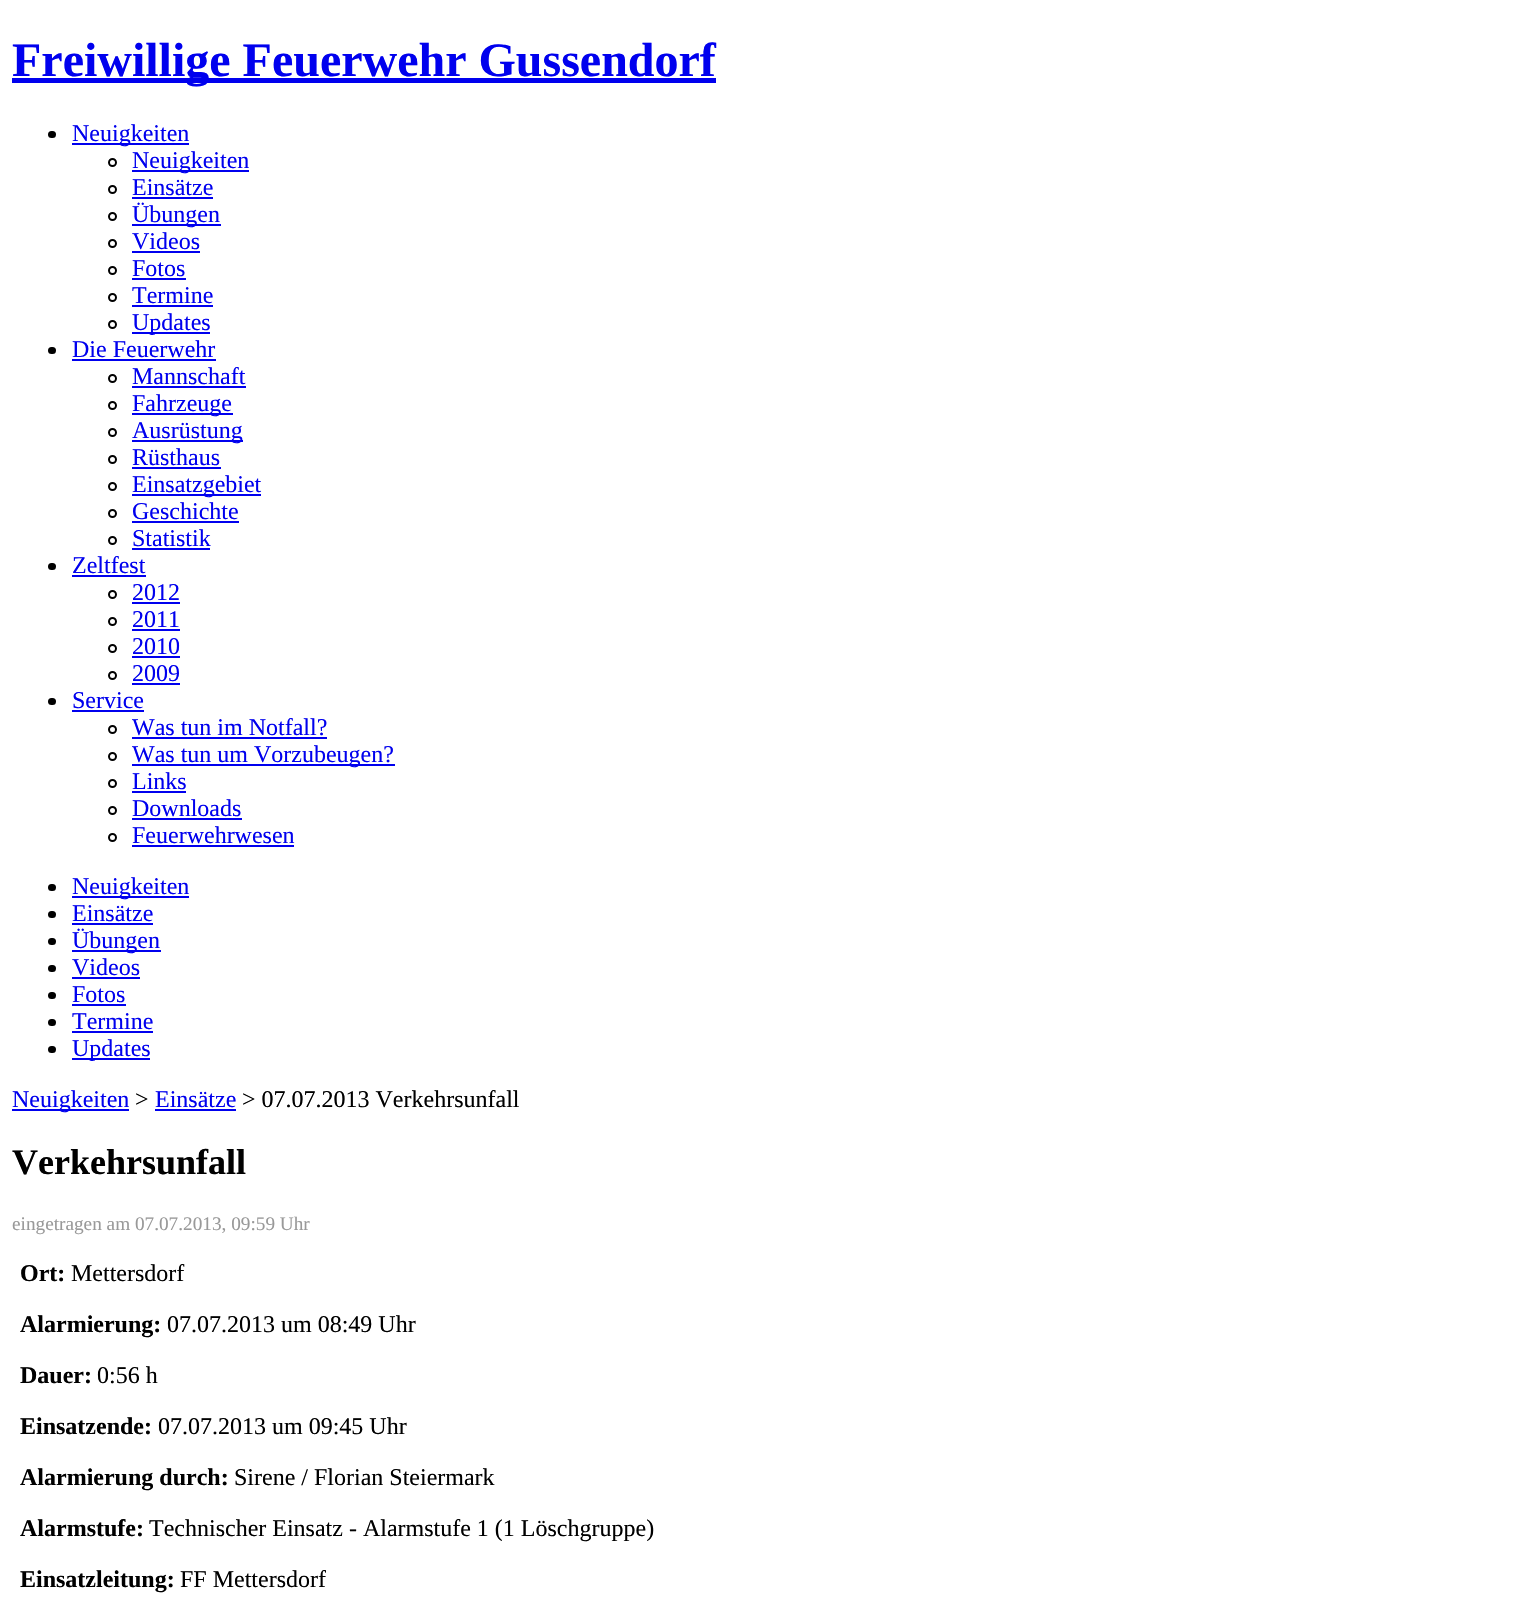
void draw(SkCanvas* canvas) {
	SkPaint paint;
	paint.setAntiAlias(true);
	canvas->clear(0xffffffff);
	paint.setColor(0xff0000ee);
	canvas->drawRect(SkRect::MakeXYWH(12, 78, 704, 5), paint);
	SkFont f1(fontMgr->matchFamilyStyle("Liberation Serif", SkFontStyle::Bold()), 48);
	f1.setSubpixel(true);
	canvas->drawString("Freiwillige Feuerwehr Gussendorf", 12, 76, f1, paint);
	paint.setColor(0xff000000);
	canvas->drawRoundRect(SkRect::MakeXYWH(48, 131, 8, 7), 3.5, 3.5, paint);
	paint.setColor(0xff0000ee);
	canvas->drawRect(SkRect::MakeXYWH(72, 143, 117, 2), paint);
	SkFont f2(fontMgr->matchFamilyStyle("Liberation Serif", SkFontStyle::Normal()), 24);
	f2.setSubpixel(true);
	canvas->drawString("Neuigkeiten", 72, 141, f2, paint);
	paint.setStroke(true);
	paint.setStrokeWidth(2);
	paint.setColor(0xff000000);
	canvas->drawCircle(112.5, 162.5, 3.5, paint);
	paint.setStroke(false);
	paint.setColor(0xff0000ee);
	canvas->drawRect(SkRect::MakeXYWH(132, 170, 117, 2), paint);
	canvas->drawString("Neuigkeiten", 132, 168, f2, paint);
	paint.setStroke(true);
	paint.setColor(0xff000000);
	canvas->drawCircle(112.5, 189.5, 3.5, paint);
	paint.setStroke(false);
	paint.setColor(0xff0000ee);
	canvas->drawString("Einsätze", 132, 195, f2, paint);
	canvas->drawRect(SkRect::MakeXYWH(132, 197, 81, 2), paint);
	paint.setStroke(true);
	paint.setColor(0xff000000);
	canvas->drawCircle(112.5, 216.5, 3.5, paint);
	paint.setStroke(false);
	paint.setColor(0xff0000ee);
	canvas->drawRect(SkRect::MakeXYWH(132, 224, 89, 2), paint);
	canvas->drawString("Übungen", 132, 222, f2, paint);
	paint.setStroke(true);
	paint.setColor(0xff000000);
	canvas->drawCircle(112.5, 243.5, 3.5, paint);
	paint.setStroke(false);
	paint.setColor(0xff0000ee);
	canvas->drawString("Videos", 132, 249, f2, paint);
	canvas->drawRect(SkRect::MakeXYWH(132, 251, 68, 2), paint);
	paint.setStroke(true);
	paint.setColor(0xff000000);
	canvas->drawCircle(112.5, 270.5, 3.5, paint);
	paint.setStroke(false);
	paint.setColor(0xff0000ee);
	canvas->drawString("Fotos", 132, 276, f2, paint);
	canvas->drawRect(SkRect::MakeXYWH(132, 278, 54, 2), paint);
	paint.setStroke(true);
	paint.setColor(0xff000000);
	canvas->drawCircle(112.5, 297.5, 3.5, paint);
	paint.setStroke(false);
	paint.setColor(0xff0000ee);
	canvas->drawString("Termine", 132, 303, f2, paint);
	canvas->drawRect(SkRect::MakeXYWH(132, 305, 81, 2), paint);
	paint.setStroke(true);
	paint.setColor(0xff000000);
	canvas->drawCircle(112.5, 324.5, 3.5, paint);
	paint.setStroke(false);
	paint.setColor(0xff0000ee);
	canvas->drawRect(SkRect::MakeXYWH(132, 332, 78, 2), paint);
	canvas->drawString("Updates", 132, 330, f2, paint);
	paint.setColor(0xff000000);
	canvas->drawRoundRect(SkRect::MakeXYWH(48, 347, 8, 7), 3.5, 3.5, paint);
	paint.setColor(0xff0000ee);
	canvas->drawString("Die Feuerwehr", 72, 357, f2, paint);
	canvas->drawRect(SkRect::MakeXYWH(72, 359, 144, 2), paint);
	paint.setStroke(true);
	paint.setColor(0xff000000);
	canvas->drawCircle(112.5, 378.5, 3.5, paint);
	paint.setStroke(false);
	paint.setColor(0xff0000ee);
	canvas->drawString("Mannschaft", 132, 384, f2, paint);
	canvas->drawRect(SkRect::MakeXYWH(132, 386, 114, 2), paint);
	paint.setStroke(true);
	paint.setColor(0xff000000);
	canvas->drawCircle(112.5, 405.5, 3.5, paint);
	paint.setStroke(false);
	paint.setColor(0xff0000ee);
	canvas->drawRect(SkRect::MakeXYWH(132, 413, 101, 2), paint);
	canvas->drawString("Fahrzeuge", 132, 411, f2, paint);
	paint.setStroke(true);
	paint.setColor(0xff000000);
	canvas->drawCircle(112.5, 432.5, 3.5, paint);
	paint.setStroke(false);
	paint.setColor(0xff0000ee);
	canvas->drawRect(SkRect::MakeXYWH(132, 440, 111, 2), paint);
	canvas->drawString("Ausrüstung", 132, 438, f2, paint);
	paint.setStroke(true);
	paint.setColor(0xff000000);
	canvas->drawCircle(112.5, 459.5, 3.5, paint);
	paint.setStroke(false);
	paint.setColor(0xff0000ee);
	canvas->drawString("Rüsthaus", 132, 465, f2, paint);
	canvas->drawRect(SkRect::MakeXYWH(132, 467, 89, 2), paint);
	paint.setStroke(true);
	paint.setColor(0xff000000);
	canvas->drawCircle(112.5, 486.5, 3.5, paint);
	paint.setStroke(false);
	paint.setColor(0xff0000ee);
	canvas->drawRect(SkRect::MakeXYWH(132, 494, 129, 2), paint);
	canvas->drawString("Einsatzgebiet", 132, 492, f2, paint);
	paint.setStroke(true);
	paint.setColor(0xff000000);
	canvas->drawCircle(112.5, 513.5, 3.5, paint);
	paint.setStroke(false);
	paint.setColor(0xff0000ee);
	canvas->drawString("Geschichte", 132, 519, f2, paint);
	canvas->drawRect(SkRect::MakeXYWH(132, 521, 107, 2), paint);
	paint.setStroke(true);
	paint.setColor(0xff000000);
	canvas->drawCircle(112.5, 540.5, 3.5, paint);
	paint.setStroke(false);
	paint.setColor(0xff0000ee);
	canvas->drawString("Statistik", 132, 546, f2, paint);
	canvas->drawRect(SkRect::MakeXYWH(132, 548, 78, 2), paint);
	paint.setColor(0xff000000);
	canvas->drawRoundRect(SkRect::MakeXYWH(48, 563, 8, 7), 3.5, 3.5, paint);
	paint.setColor(0xff0000ee);
	canvas->drawString("Zeltfest", 72, 573, f2, paint);
	canvas->drawRect(SkRect::MakeXYWH(72, 575, 74, 2), paint);
	paint.setStroke(true);
	paint.setColor(0xff000000);
	canvas->drawCircle(112.5, 594.5, 3.5, paint);
	paint.setStroke(false);
	paint.setColor(0xff0000ee);
	canvas->drawString("2012", 132, 600, f2, paint);
	canvas->drawRect(SkRect::MakeXYWH(132, 602, 48, 2), paint);
	paint.setStroke(true);
	paint.setColor(0xff000000);
	canvas->drawCircle(112.5, 621.5, 3.5, paint);
	paint.setStroke(false);
	paint.setColor(0xff0000ee);
	canvas->drawString("2011", 132, 627, f2, paint);
	canvas->drawRect(SkRect::MakeXYWH(132, 629, 48, 2), paint);
	paint.setStroke(true);
	paint.setColor(0xff000000);
	canvas->drawCircle(112.5, 648.5, 3.5, paint);
	paint.setStroke(false);
	paint.setColor(0xff0000ee);
	canvas->drawString("2010", 132, 654, f2, paint);
	canvas->drawRect(SkRect::MakeXYWH(132, 656, 48, 2), paint);
	paint.setStroke(true);
	paint.setColor(0xff000000);
	canvas->drawCircle(112.5, 675.5, 3.5, paint);
	paint.setStroke(false);
	paint.setColor(0xff0000ee);
	canvas->drawString("2009", 132, 681, f2, paint);
	canvas->drawRect(SkRect::MakeXYWH(132, 683, 48, 2), paint);
	paint.setColor(0xff000000);
	canvas->drawRoundRect(SkRect::MakeXYWH(48, 698, 8, 7), 3.5, 3.5, paint);
	paint.setColor(0xff0000ee);
	canvas->drawString("Service", 72, 708, f2, paint);
	canvas->drawRect(SkRect::MakeXYWH(72, 710, 72, 2), paint);
	paint.setStroke(true);
	paint.setColor(0xff000000);
	canvas->drawCircle(112.5, 729.5, 3.5, paint);
	paint.setStroke(false);
	paint.setColor(0xff0000ee);
	canvas->drawString("Was tun im Notfall?", 132, 735, f2, paint);
	canvas->drawRect(SkRect::MakeXYWH(132, 737, 195, 2), paint);
	paint.setStroke(true);
	paint.setColor(0xff000000);
	canvas->drawCircle(112.5, 756.5, 3.5, paint);
	paint.setStroke(false);
	paint.setColor(0xff0000ee);
	canvas->drawRect(SkRect::MakeXYWH(132, 764, 263, 2), paint);
	canvas->drawString("Was tun um Vorzubeugen?", 132, 762, f2, paint);
	paint.setStroke(true);
	paint.setColor(0xff000000);
	canvas->drawCircle(112.5, 783.5, 3.5, paint);
	paint.setStroke(false);
	paint.setColor(0xff0000ee);
	canvas->drawString("Links", 132, 789, f2, paint);
	canvas->drawRect(SkRect::MakeXYWH(132, 791, 54, 2), paint);
	paint.setStroke(true);
	paint.setColor(0xff000000);
	canvas->drawCircle(112.5, 810.5, 3.5, paint);
	paint.setStroke(false);
	paint.setColor(0xff0000ee);
	canvas->drawString("Downloads", 132, 816, f2, paint);
	canvas->drawRect(SkRect::MakeXYWH(132, 818, 110, 2), paint);
	paint.setStroke(true);
	paint.setColor(0xff000000);
	canvas->drawCircle(112.5, 837.5, 3.5, paint);
	paint.setStroke(false);
	paint.setColor(0xff0000ee);
	canvas->drawString("Feuerwehrwesen", 132, 843, f2, paint);
	canvas->drawRect(SkRect::MakeXYWH(132, 845, 162, 2), paint);
	paint.setColor(0xff000000);
	canvas->drawRoundRect(SkRect::MakeXYWH(48, 884, 8, 7), 3.5, 3.5, paint);
	paint.setColor(0xff0000ee);
	canvas->drawRect(SkRect::MakeXYWH(72, 896, 117, 2), paint);
	canvas->drawString("Neuigkeiten", 72, 894, f2, paint);
	paint.setColor(0xff000000);
	canvas->drawRoundRect(SkRect::MakeXYWH(48, 911, 8, 7), 3.5, 3.5, paint);
	paint.setColor(0xff0000ee);
	canvas->drawString("Einsätze", 72, 921, f2, paint);
	canvas->drawRect(SkRect::MakeXYWH(72, 923, 81, 2), paint);
	paint.setColor(0xff000000);
	canvas->drawRoundRect(SkRect::MakeXYWH(48, 938, 8, 7), 3.5, 3.5, paint);
	paint.setColor(0xff0000ee);
	canvas->drawRect(SkRect::MakeXYWH(72, 950, 89, 2), paint);
	canvas->drawString("Übungen", 72, 948, f2, paint);
	paint.setColor(0xff000000);
	canvas->drawRoundRect(SkRect::MakeXYWH(48, 965, 8, 7), 3.5, 3.5, paint);
	paint.setColor(0xff0000ee);
	canvas->drawString("Videos", 72, 975, f2, paint);
	canvas->drawRect(SkRect::MakeXYWH(72, 977, 68, 2), paint);
	paint.setColor(0xff000000);
	canvas->drawRoundRect(SkRect::MakeXYWH(48, 992, 8, 7), 3.5, 3.5, paint);
	paint.setColor(0xff0000ee);
	canvas->drawString("Fotos", 72, 1002, f2, paint);
	canvas->drawRect(SkRect::MakeXYWH(72, 1004, 54, 2), paint);
	paint.setColor(0xff000000);
	canvas->drawRoundRect(SkRect::MakeXYWH(48, 1019, 8, 7), 3.5, 3.5, paint);
	paint.setColor(0xff0000ee);
	canvas->drawString("Termine", 72, 1029, f2, paint);
	canvas->drawRect(SkRect::MakeXYWH(72, 1031, 81, 2), paint);
	paint.setColor(0xff000000);
	canvas->drawRoundRect(SkRect::MakeXYWH(48, 1046, 8, 7), 3.5, 3.5, paint);
	paint.setColor(0xff0000ee);
	canvas->drawRect(SkRect::MakeXYWH(72, 1058, 78, 2), paint);
	canvas->drawString("Updates", 72, 1056, f2, paint);
	canvas->drawRect(SkRect::MakeXYWH(12, 1109, 117, 2), paint);
	canvas->drawString("Neuigkeiten", 12, 1107, f2, paint);
	paint.setColor(0xff000000);
	canvas->drawString(">", 135, 1107, f2, paint);
	paint.setColor(0xff0000ee);
	canvas->drawString("Einsätze", 155, 1107, f2, paint);
	canvas->drawRect(SkRect::MakeXYWH(155, 1109, 81, 2), paint);
	paint.setColor(0xff000000);
	canvas->drawString("> 07.07.2013 Verkehrsunfall", 242, 1107, f2, paint);
	SkFont f3(fontMgr->matchFamilyStyle("Liberation Serif", SkFontStyle::Bold()), 36);
	f3.setSubpixel(true);
	canvas->drawString("Verkehrsunfall", 12, 1174, f3, paint);
	SkFont f4(fontMgr->matchFamilyStyle("Liberation Serif", SkFontStyle::Normal()), 19.25);
	f4.setSubpixel(true);
	paint.setColor(0xff999999);
	canvas->drawString("eingetragen am 07.07.2013, 09:59 Uhr", 12, 1230, f4, paint);
	SkFont f5(fontMgr->matchFamilyStyle("Liberation Serif", SkFontStyle::Bold()), 24);
	f5.setSubpixel(true);
	paint.setColor(0xff000000);
	canvas->drawString("Ort:", 20, 1281, f5, paint);
	canvas->drawString("Mettersdorf", 71, 1281, f2, paint);
	canvas->drawString("Alarmierung:", 20, 1332, f5, paint);
	canvas->drawString("07.07.2013 um 08:49 Uhr", 167, 1332, f2, paint);
	canvas->drawString("Dauer:", 20, 1383, f5, paint);
	canvas->drawString("0:56 h", 97, 1383, f2, paint);
	canvas->drawString("Einsatzende:", 20, 1434, f5, paint);
	canvas->drawString("07.07.2013 um 09:45 Uhr", 158, 1434, f2, paint);
	canvas->drawString("Alarmierung durch:", 20, 1485, f5, paint);
	canvas->drawString("Sirene / Florian Steiermark", 234, 1485, f2, paint);
	canvas->drawString("Alarmstufe:", 20, 1536, f5, paint);
	canvas->drawString("Technischer Einsatz - Alarmstufe 1 (1 Löschgruppe)", 149, 1536, f2, paint);
	canvas->drawString("Einsatzleitung:", 20, 1587, f5, paint);
	canvas->drawString("FF Mettersdorf", 180, 1587, f2, paint);
}
